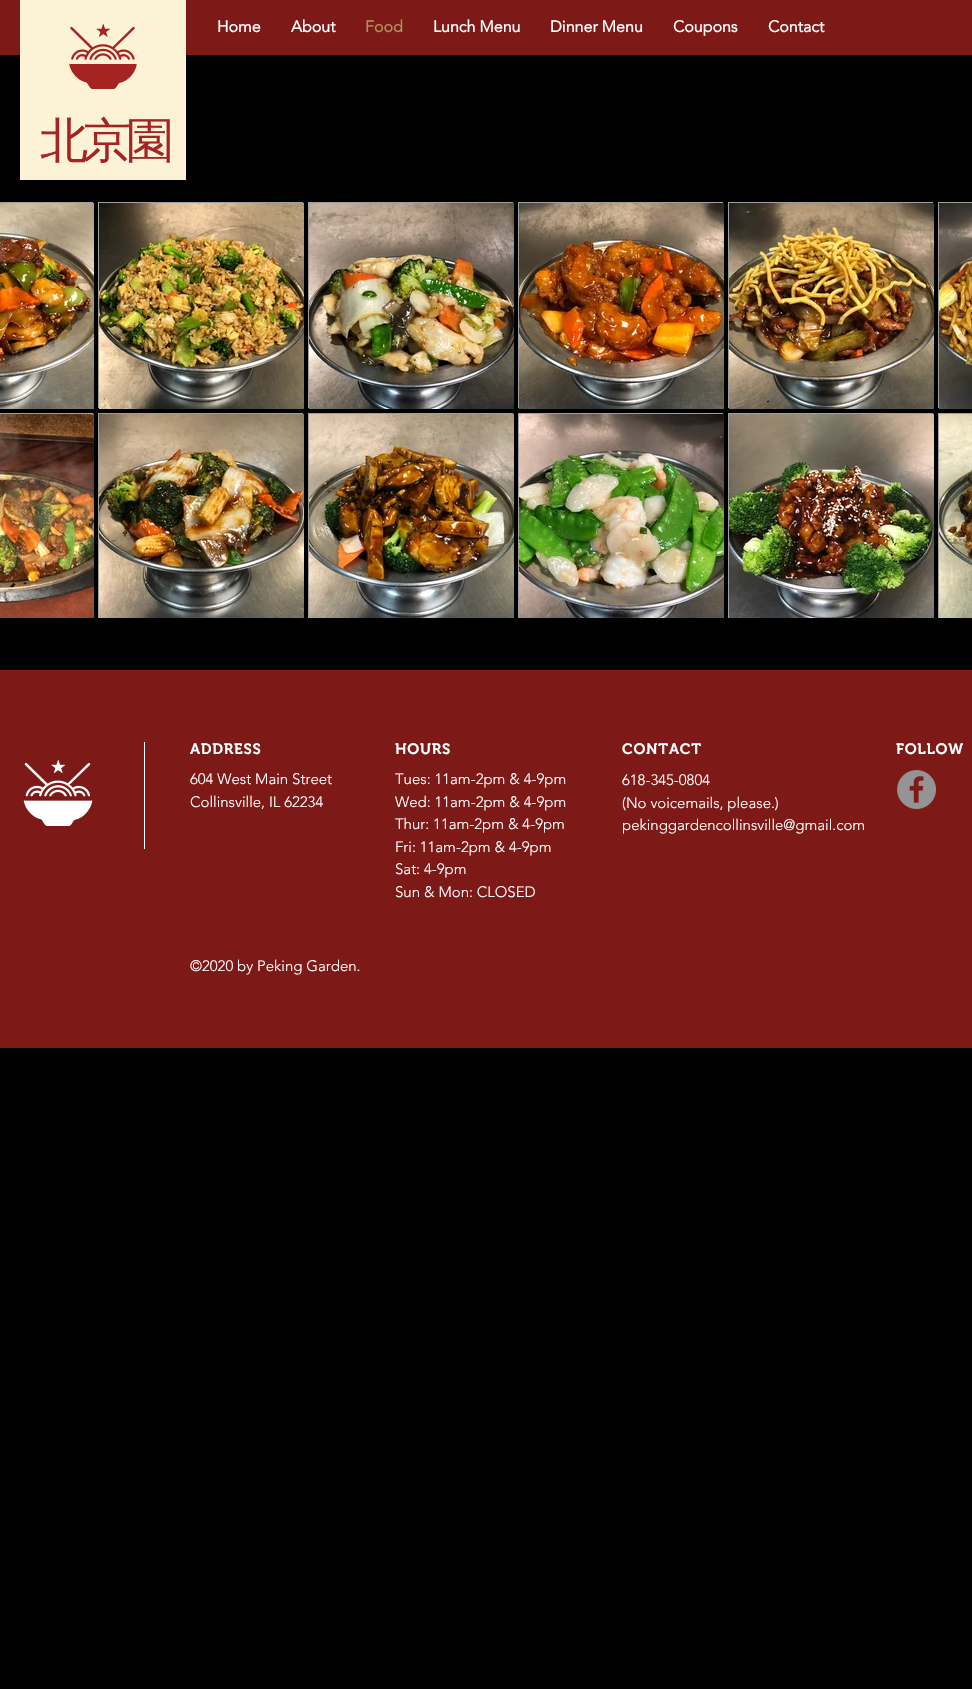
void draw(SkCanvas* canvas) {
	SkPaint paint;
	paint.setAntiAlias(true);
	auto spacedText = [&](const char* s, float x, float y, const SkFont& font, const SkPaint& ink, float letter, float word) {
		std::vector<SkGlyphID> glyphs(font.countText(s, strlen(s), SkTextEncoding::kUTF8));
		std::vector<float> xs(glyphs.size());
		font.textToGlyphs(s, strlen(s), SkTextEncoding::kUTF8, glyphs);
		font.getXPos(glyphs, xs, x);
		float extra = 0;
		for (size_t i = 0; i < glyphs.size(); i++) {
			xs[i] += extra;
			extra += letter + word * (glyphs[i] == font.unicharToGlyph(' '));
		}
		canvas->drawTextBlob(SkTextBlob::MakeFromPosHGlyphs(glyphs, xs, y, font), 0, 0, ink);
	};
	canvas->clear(0xff000000);
	paint.setColor(0xff7d1917);
	canvas->drawRect(SkRect::MakeXYWH(0, 0, 972, 55), paint);
	SkFont f1(fontMgr->matchFamilyStyle("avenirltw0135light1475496", SkFontStyle::Bold()), 16);
	f1.setSubpixel(true);
	paint.setColor(0xffffffff);
	canvas->drawString("Home", 217, 32, f1, paint);
	canvas->drawString("About", 291, 32, f1, paint);
	paint.setColor(0xffa9965f);
	canvas->drawString("Food", 365, 32, f1, paint);
	paint.setColor(0xffffffff);
	canvas->drawString("Lunch Menu", 433, 32, f1, paint);
	canvas->drawString("Dinner Menu", 550, 32, f1, paint);
	canvas->drawString("Coupons", 673, 32, f1, paint);
	canvas->drawString("Contact", 768, 32, f1, paint);
	paint.setColor(0xfffcf3d7);
	canvas->drawRect(SkRect::MakeXYWH(20, 0, 166, 180), paint);
	canvas->drawImageRect(SkImages::DeferredFromEncodedData(SkData::MakeFromFileName("img1.png")), SkRect::MakeXYWH(69, 24, 68, 65), SkSamplingOptions());
	SkFont f2(fontMgr->matchFamilyStyle("WenQuanYi Zen Hei", SkFontStyle(500, SkFontStyle::kNormal_Width, SkFontStyle::kUpright_Slant)), 48);
	f2.setSubpixel(true);
	paint.setColor(0xffa52421);
	spacedText("北京園", 40, 157, f2, paint, -5, 0);
	paint.setColor(0xffa0a09f);
	canvas->drawRect(SkRect::MakeXYWH(0, 202, 93, 1), paint);
	canvas->drawImageRect(SkImages::DeferredFromEncodedData(SkData::MakeFromFileName("img2.png")), SkRect::MakeXYWH(0, 203, 94, 206), SkSamplingOptions());
	canvas->drawRect(SkRect::MakeXYWH(0, 413, 93, 1), paint);
	canvas->drawImageRect(SkImages::DeferredFromEncodedData(SkData::MakeFromFileName("img3.png")), SkRect::MakeXYWH(0, 414, 94, 204), SkSamplingOptions());
	canvas->drawRect(SkRect::MakeXYWH(98, 202, 205, 206), paint);
	canvas->drawImageRect(SkImages::DeferredFromEncodedData(SkData::MakeFromFileName("img4.png")), SkRect::MakeXYWH(99, 203, 205, 206), SkSamplingOptions());
	canvas->drawRect(SkRect::MakeXYWH(98, 413, 205, 205), paint);
	canvas->drawImageRect(SkImages::DeferredFromEncodedData(SkData::MakeFromFileName("img5.png")), SkRect::MakeXYWH(99, 414, 205, 204), SkSamplingOptions());
	canvas->drawRect(SkRect::MakeXYWH(308, 202, 205, 206), paint);
	canvas->drawImageRect(SkImages::DeferredFromEncodedData(SkData::MakeFromFileName("img6.png")), SkRect::MakeXYWH(309, 203, 205, 206), SkSamplingOptions());
	canvas->drawRect(SkRect::MakeXYWH(308, 413, 205, 205), paint);
	canvas->drawImageRect(SkImages::DeferredFromEncodedData(SkData::MakeFromFileName("img7.png")), SkRect::MakeXYWH(309, 414, 205, 204), SkSamplingOptions());
	canvas->drawRect(SkRect::MakeXYWH(518, 202, 205, 206), paint);
	canvas->drawImageRect(SkImages::DeferredFromEncodedData(SkData::MakeFromFileName("img8.png")), SkRect::MakeXYWH(519, 203, 205, 206), SkSamplingOptions());
	canvas->drawRect(SkRect::MakeXYWH(518, 413, 205, 205), paint);
	canvas->drawImageRect(SkImages::DeferredFromEncodedData(SkData::MakeFromFileName("img9.png")), SkRect::MakeXYWH(519, 414, 205, 204), SkSamplingOptions());
	canvas->drawRect(SkRect::MakeXYWH(728, 202, 205, 206), paint);
	canvas->drawImageRect(SkImages::DeferredFromEncodedData(SkData::MakeFromFileName("img10.png")), SkRect::MakeXYWH(729, 203, 205, 206), SkSamplingOptions());
	canvas->drawRect(SkRect::MakeXYWH(728, 413, 205, 205), paint);
	canvas->drawImageRect(SkImages::DeferredFromEncodedData(SkData::MakeFromFileName("img11.png")), SkRect::MakeXYWH(729, 414, 205, 204), SkSamplingOptions());
	canvas->drawRect(SkRect::MakeXYWH(938, 202, 34, 206), paint);
	canvas->drawImageRect(SkImages::DeferredFromEncodedData(SkData::MakeFromFileName("img12.png")), SkRect::MakeXYWH(939, 203, 33, 206), SkSamplingOptions());
	canvas->drawRect(SkRect::MakeXYWH(938, 413, 34, 205), paint);
	canvas->drawImageRect(SkImages::DeferredFromEncodedData(SkData::MakeFromFileName("img13.png")), SkRect::MakeXYWH(939, 414, 33, 204), SkSamplingOptions());
	paint.setColor(0xff7d1917);
	canvas->drawRect(SkRect::MakeXYWH(0, 670, 972, 378), paint);
	paint.setColor(0xffffffff);
	canvas->drawRect(SkRect::MakeXYWH(144, 742, 1, 107), paint);
	SkFont f3(fontMgr->matchFamilyStyle("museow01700", SkFontStyle(600, SkFontStyle::kNormal_Width, SkFontStyle::kUpright_Slant)), 15);
	f3.setSubpixel(true);
	spacedText("ADDRESS", 190, 754, f3, paint, 0.75, 0);
	spacedText("HOURS", 395, 754, f3, paint, 0.75, 0);
	spacedText("CONTACT", 622, 754, f3, paint, 0.75, 0);
	spacedText("FOLLOW", 896, 754, f3, paint, 0.75, 0);
	canvas->drawImageRect(SkImages::DeferredFromEncodedData(SkData::MakeFromFileName("img14.png")), SkRect::MakeXYWH(23, 760, 70, 66), SkSamplingOptions());
	SkFont f4(fontMgr->matchFamilyStyle("avenirltw0135light1475496", SkFontStyle(300, SkFontStyle::kNormal_Width, SkFontStyle::kUpright_Slant)), 15);
	f4.setSubpixel(true);
	canvas->drawString("604 West Main Street", 190, 784, f4, paint);
	canvas->drawString("Collinsville, IL 62234", 190, 807, f4, paint);
	canvas->drawString("Tues: 11am-2pm & 4-9pm", 395, 784, f4, paint);
	canvas->drawString("Wed: 11am-2pm & 4-9pm", 395, 807, f4, paint);
	canvas->drawString("Thur: 11am-2pm & 4-9pm", 395, 829, f4, paint);
	canvas->drawString("Fri: 11am-2pm & 4-9pm", 395, 852, f4, paint);
	canvas->drawString("Sat: 4-9pm", 395, 874, f4, paint);
	canvas->drawString("Sun & Mon: CLOSED", 395, 897, f4, paint);
	canvas->drawString("618-345-0804", 622, 785, f4, paint);
	canvas->drawString("(No voicemails, please.)", 622, 808, f4, paint);
	canvas->drawString("pekinggardencollinsville@gmail.com", 622, 830, f4, paint);
	canvas->drawImageRect(SkImages::DeferredFromEncodedData(SkData::MakeFromFileName("img15.png")), SkRect::MakeXYWH(897, 770, 39, 39), SkSamplingOptions());
	canvas->drawString("©2020 by Peking Garden.", 190, 971, f4, paint);
}
